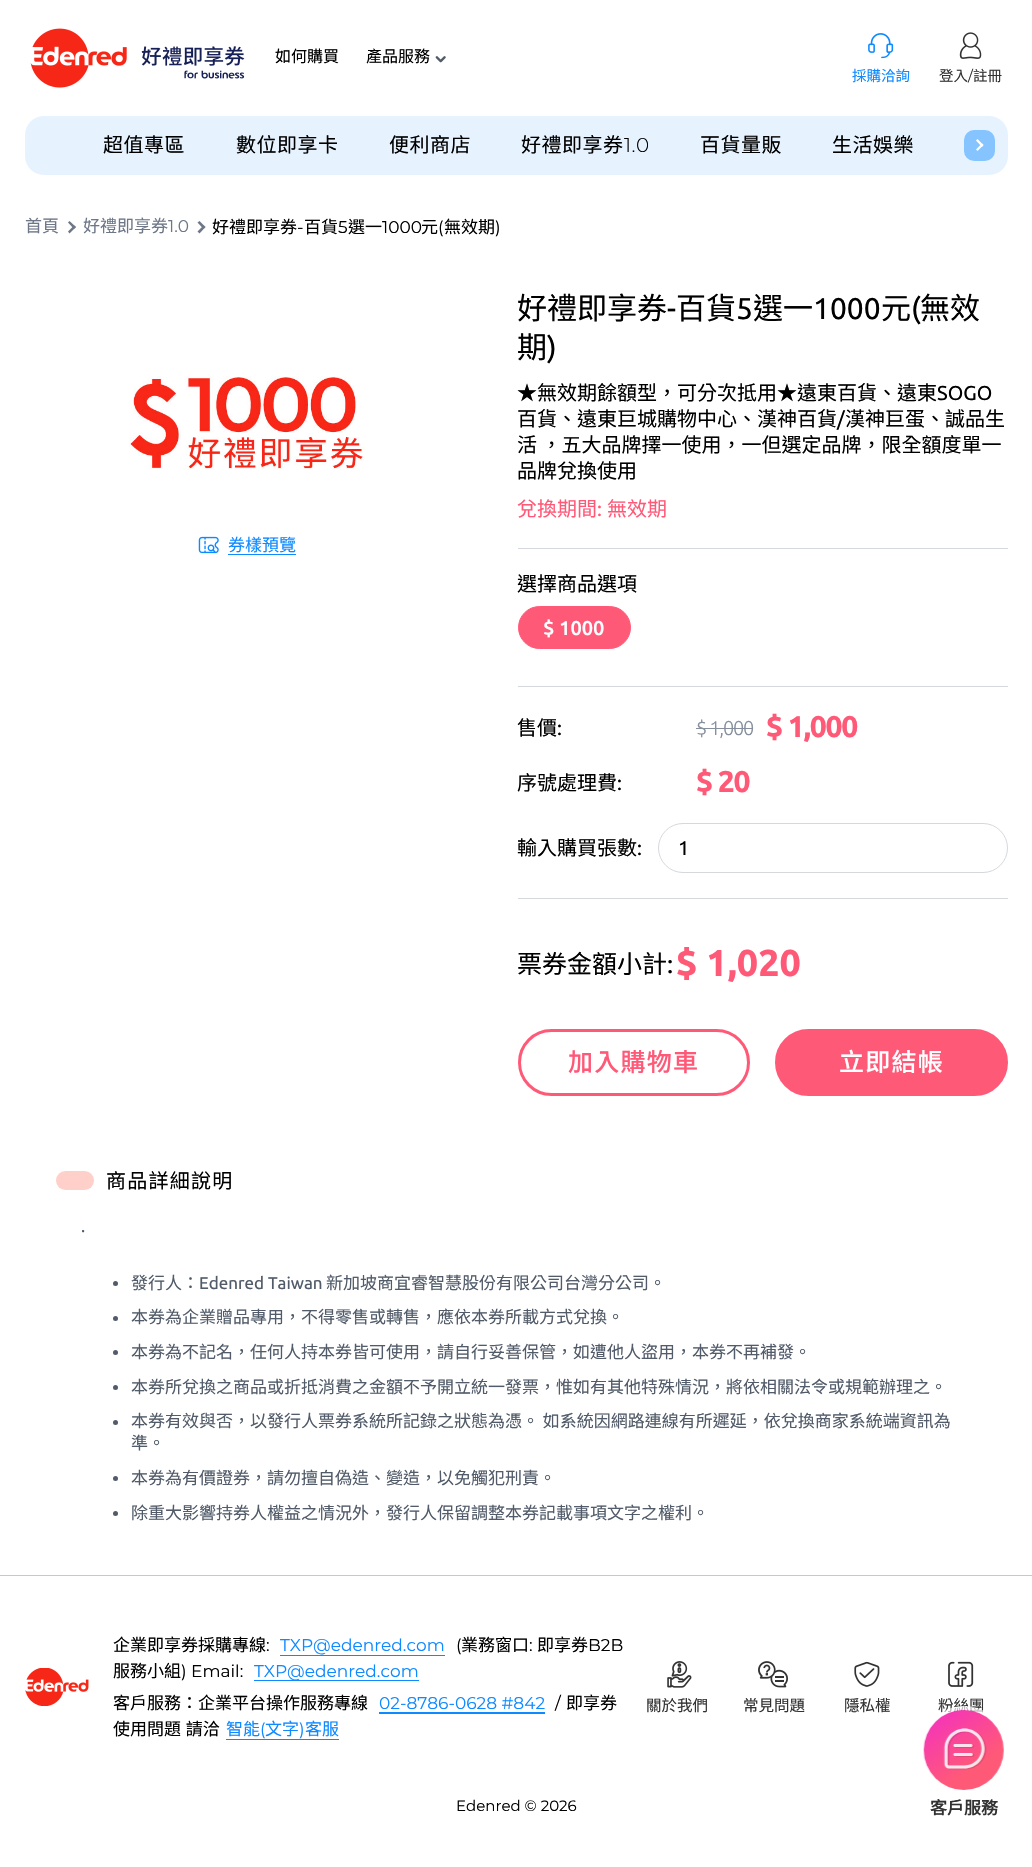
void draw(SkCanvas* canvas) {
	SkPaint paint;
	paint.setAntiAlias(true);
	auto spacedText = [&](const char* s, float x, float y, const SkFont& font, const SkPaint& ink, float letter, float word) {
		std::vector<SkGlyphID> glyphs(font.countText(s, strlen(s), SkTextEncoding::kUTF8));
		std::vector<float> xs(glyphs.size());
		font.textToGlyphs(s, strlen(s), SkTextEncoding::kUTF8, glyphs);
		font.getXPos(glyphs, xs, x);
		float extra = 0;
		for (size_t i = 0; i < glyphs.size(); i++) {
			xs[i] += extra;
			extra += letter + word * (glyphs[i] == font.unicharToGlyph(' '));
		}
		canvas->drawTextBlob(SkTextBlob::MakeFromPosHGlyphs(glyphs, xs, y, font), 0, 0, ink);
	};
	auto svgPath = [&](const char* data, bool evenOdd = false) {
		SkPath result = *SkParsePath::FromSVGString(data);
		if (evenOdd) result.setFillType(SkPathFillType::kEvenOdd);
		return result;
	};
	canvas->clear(0xffffffff);
	canvas->drawImageRect(SkImages::DeferredFromEncodedData(SkData::MakeFromFileName("img1.png")), SkRect::MakeXYWH(30, 28, 215, 60), SkSamplingOptions());
	SkFont f1(fontMgr->matchFamilyStyle("Noto Sans CJK TC", SkFontStyle::Normal()), 16);
	f1.setSubpixel(true);
	paint.setColor(0xff000000);
	canvas->drawString("如何購買", 275, 62, f1, paint);
	canvas->drawString("產品服務", 366, 62, f1, paint);
	canvas->drawImageRect(SkImages::DeferredFromEncodedData(SkData::MakeFromFileName("img2.png")), SkRect::MakeXYWH(435, 56, 11, 7), SkSamplingOptions());
	canvas->drawImageRect(SkImages::DeferredFromEncodedData(SkData::MakeFromFileName("img3.png")), SkRect::MakeXYWH(868, 33, 26, 26), SkSamplingOptions());
	SkFont f2(fontMgr->matchFamilyStyle("Noto Sans CJK TC", SkFontStyle::Normal()), 14.5);
	f2.setSubpixel(true);
	paint.setColor(0xff0d8aff);
	canvas->drawString("採購洽詢", 852, 81, f2, paint);
	canvas->drawImageRect(SkImages::DeferredFromEncodedData(SkData::MakeFromFileName("img4.png")), SkRect::MakeXYWH(959, 32, 23, 27), SkSamplingOptions());
	paint.setColor(0xff323232);
	canvas->drawString("登入", 939, 81, f2, paint);
	SkFont f3(fontMgr->matchFamilyStyle("Montserrat", SkFontStyle::Normal()), 14.5);
	f3.setSubpixel(true);
	canvas->drawString("/", 968, 81, f3, paint);
	canvas->drawString("註冊", 973, 81, f2, paint);
	paint.setColor(0xffe6f3ff);
	canvas->drawRoundRect(SkRect::MakeXYWH(25, 116, 983, 59), 19, 19, paint);
	SkFont f4(fontMgr->matchFamilyStyle("Noto Sans CJK TC", SkFontStyle::Normal()), 20);
	f4.setSubpixel(true);
	paint.setColor(0xff000000);
	spacedText("超值專區", 103, 152, f4, paint, 0.5, 0);
	spacedText("數位即享卡", 236, 152, f4, paint, 0.5, 0);
	spacedText("便利商店", 389, 152, f4, paint, 0.5, 0);
	spacedText("好禮即享券", 521, 152, f4, paint, 0.5, 0);
	SkFont f5(fontMgr->matchFamilyStyle("Montserrat", SkFontStyle(300, SkFontStyle::kNormal_Width, SkFontStyle::kUpright_Slant)), 20);
	f5.setSubpixel(true);
	spacedText("1.0", 624, 152, f5, paint, 0.5, 0);
	spacedText("百貨量販", 700, 152, f4, paint, 0.5, 0);
	spacedText("生活娛樂", 832, 152, f4, paint, 0.5, 0);
	paint.setColor(0xff86c4ff);
	canvas->drawRoundRect(SkRect::MakeXYWH(964, 130, 31, 31), 10, 10, paint);
	paint.setColor(0xffffffff);
	canvas->drawPath(svgPath("M977.5 139L983.5 145L982 147L976 140.5Z"), paint);
	canvas->drawPath(svgPath("M982 143.5L983.5 145L977.5 151L976 149.5Z"), paint);
	SkFont f6(fontMgr->matchFamilyStyle("Noto Sans CJK TC", SkFontStyle::Normal()), 17);
	f6.setSubpixel(true);
	paint.setColor(0xff6d7787);
	canvas->drawString("首頁", 25, 232, f6, paint);
	canvas->drawPath(svgPath("M69.5 221L76 227L74 229L68 222.5Z"), paint);
	canvas->drawPath(svgPath("M74 225.5L76 227L69.5 233.5L68 231.5Z"), paint);
	canvas->drawString("好禮即享券", 83, 232, f6, paint);
	SkFont f7(fontMgr->matchFamilyStyle("Montserrat", SkFontStyle::Normal()), 17);
	f7.setSubpixel(true);
	canvas->drawString("1.0", 168, 232, f7, paint);
	canvas->drawPath(svgPath("M199.5 221L205.5 227L203.5 229L197.5 222.5Z"), paint);
	canvas->drawPath(svgPath("M203.5 225.5L205.5 227L199.5 233.5L197.5 231.5Z"), paint);
	paint.setColor(0xff000000);
	canvas->drawString("好禮即享券", 212, 233, f6, paint);
	canvas->drawString("-", 297, 233, f7, paint);
	canvas->drawString("百貨", 304, 233, f6, paint);
	canvas->drawString("5", 338, 233, f7, paint);
	canvas->drawString("選一", 348, 233, f6, paint);
	canvas->drawString("1000", 382, 233, f7, paint);
	canvas->drawString("元", 421, 233, f6, paint);
	canvas->drawString("(", 438, 233, f7, paint);
	canvas->drawString("無效期", 444, 233, f6, paint);
	canvas->drawString(")", 495, 233, f7, paint);
	canvas->drawImageRect(SkImages::DeferredFromEncodedData(SkData::MakeFromFileName("img5.png")), SkRect::MakeXYWH(129, 376, 236, 94), SkSamplingOptions());
	canvas->drawImageRect(SkImages::DeferredFromEncodedData(SkData::MakeFromFileName("img6.png")), SkRect::MakeXYWH(198, 536, 21, 18), SkSamplingOptions());
	paint.setColor(0xff0d8aff);
	canvas->drawRect(SkRect::MakeXYWH(228, 554, 68, 1), paint);
	SkFont f8(fontMgr->matchFamilyStyle("Noto Sans TC", SkFontStyle::Normal()), 17);
	f8.setSubpixel(true);
	canvas->drawString("券樣預覽", 228, 551, f8, paint);
	SkFont f9(fontMgr->matchFamilyStyle("Noto Sans TC", SkFontStyle::Normal()), 30);
	f9.setSubpixel(true);
	paint.setColor(0xff000000);
	canvas->drawString("好禮即享券", 517, 319, f9, paint);
	SkFont f10(fontMgr->matchFamilyStyle("Ubuntu", SkFontStyle::Normal()), 30);
	f10.setSubpixel(true);
	canvas->drawString("-", 667, 319, f10, paint);
	canvas->drawString("百貨", 676, 319, f9, paint);
	canvas->drawString("5", 736, 319, f10, paint);
	canvas->drawString("選一", 753, 319, f9, paint);
	canvas->drawString("1000", 813, 319, f10, paint);
	canvas->drawString("元", 881, 319, f9, paint);
	canvas->drawString("(", 911, 319, f10, paint);
	canvas->drawString("無效", 920, 319, f9, paint);
	canvas->drawString("期", 517, 358, f9, paint);
	canvas->drawString(")", 547, 358, f10, paint);
	SkFont f11(fontMgr->matchFamilyStyle("Noto Sans TC", SkFontStyle::Normal()), 20);
	f11.setSubpixel(true);
	canvas->drawString("★無效期餘額型，可分次抵用★遠東百貨、遠東", 517, 400, f11, paint);
	SkFont f12(fontMgr->matchFamilyStyle("Ubuntu", SkFontStyle::Normal()), 20);
	f12.setSubpixel(true);
	canvas->drawString("SOGO", 937, 400, f12, paint);
	canvas->drawString("百貨、遠東巨城購物中心、漢神百貨", 517, 426, f11, paint);
	canvas->drawString("/", 837, 426, f12, paint);
	canvas->drawString("漢神巨蛋、誠品生", 845, 426, f11, paint);
	canvas->drawString("活 ，五大品牌擇一使用，一但選定品牌，限全額度單一", 517, 452, f11, paint);
	canvas->drawString("品牌兌換使用", 517, 478, f11, paint);
	paint.setColor(0xffff5978);
	canvas->drawString("兌換期間", 517, 516, f11, paint);
	canvas->drawString(":", 597, 516, f12, paint);
	canvas->drawString("無效期", 607, 516, f11, paint);
	paint.setColor(0xffd5d8dd);
	canvas->drawRect(SkRect::MakeXYWH(518, 548, 490, 1), paint);
	paint.setColor(0xff000000);
	canvas->drawString("選擇商品選項", 517, 591, f11, paint);
	paint.setColor(0xffff5978);
	canvas->drawRoundRect(SkRect::MakeXYWH(518.5, 606.5, 112, 42), 21, 21, paint);
	paint.setStroke(true);
	paint.setStrokeWidth(1);
	canvas->drawRoundRect(SkRect::MakeXYWH(518.5, 606.5, 112, 42), 21, 21, paint);
	SkFont f13(fontMgr->matchFamilyStyle("Ubuntu", SkFontStyle(500, SkFontStyle::kNormal_Width, SkFontStyle::kUpright_Slant)), 20);
	f13.setSubpixel(true);
	paint.setStroke(false);
	paint.setColor(0xffffffff);
	canvas->drawString("$ 1000", 543, 635, f13, paint);
	paint.setStroke(true);
	paint.setColor(0xffff5978);
	canvas->drawCircle(574, 628, 19.5, paint);
	paint.setStroke(false);
	paint.setColor(0xffd5d8dd);
	canvas->drawRect(SkRect::MakeXYWH(518, 686, 490, 1), paint);
	paint.setColor(0xff000000);
	canvas->drawString("售價", 517, 735, f11, paint);
	canvas->drawString(":", 557, 735, f12, paint);
	SkFont f14(fontMgr->matchFamilyStyle("Ubuntu", SkFontStyle(300, SkFontStyle::kNormal_Width, SkFontStyle::kUpright_Slant)), 20);
	f14.setSubpixel(true);
	paint.setColor(0xff868f9e);
	spacedText("$ 1,000", 696, 735, f14, paint, -1.25, 0);
	canvas->drawRect(SkRect::MakeXYWH(696, 728, 57, 1), paint);
	SkFont f15(fontMgr->matchFamilyStyle("Ubuntu", SkFontStyle::Bold()), 30);
	f15.setSubpixel(true);
	paint.setColor(0xffff5978);
	spacedText("$ 1,000", 766, 737, f15, paint, -1.25, 0);
	paint.setColor(0xff000000);
	canvas->drawString("序號處理費", 517, 790, f11, paint);
	canvas->drawString(":", 617, 790, f12, paint);
	paint.setColor(0xffff5978);
	spacedText("$ 20", 696, 792, f15, paint, -1.25, 0);
	paint.setColor(0xff000000);
	canvas->drawString("輸入購買張數", 517, 855, f11, paint);
	canvas->drawString(":", 637, 855, f12, paint);
	paint.setStroke(true);
	paint.setColor(0xffd5d8dd);
	canvas->drawRoundRect(SkRect::MakeXYWH(658.5, 823.5, 349, 49), 24.5, 24.5, paint);
	paint.setStroke(false);
	paint.setColor(0xff000000);
	canvas->drawString("1", 678, 855, f12, paint);
	paint.setColor(0xffd5d8dd);
	canvas->drawRect(SkRect::MakeXYWH(518, 898, 490, 1), paint);
	SkFont f16(fontMgr->matchFamilyStyle("Noto Sans TC", SkFontStyle::Normal()), 25);
	f16.setSubpixel(true);
	paint.setColor(0xff000000);
	canvas->drawString("票券金額小計", 517, 973, f16, paint);
	SkFont f17(fontMgr->matchFamilyStyle("Ubuntu", SkFontStyle::Normal()), 25);
	f17.setSubpixel(true);
	canvas->drawString(":", 667, 973, f17, paint);
	SkFont f18(fontMgr->matchFamilyStyle("Ubuntu", SkFontStyle::Bold()), 37.5);
	f18.setSubpixel(true);
	paint.setColor(0xffff5978);
	canvas->drawString("$ 1,020", 676, 976, f18, paint);
	paint.setStroke(true);
	paint.setStrokeWidth(3);
	canvas->drawRoundRect(SkRect::MakeXYWH(519.5, 1030.5, 229, 64), 32, 32, paint);
	SkFont f19(fontMgr->matchFamilyStyle("Noto Sans TC", SkFontStyle(500, SkFontStyle::kNormal_Width, SkFontStyle::kUpright_Slant)), 25);
	f19.setSubpixel(true);
	paint.setStroke(false);
	spacedText("加入購物車", 568, 1071, f19, paint, 1.25, 0);
	canvas->drawRoundRect(SkRect::MakeXYWH(776.5, 1030.5, 230, 64), 32, 32, paint);
	paint.setStroke(true);
	canvas->drawRoundRect(SkRect::MakeXYWH(776.5, 1030.5, 230, 64), 32, 32, paint);
	paint.setStroke(false);
	paint.setColor(0xffffffff);
	spacedText("立即結帳", 839, 1071, f19, paint, 1.25, 0);
	paint.setColor(0xffffd0c9);
	canvas->drawRoundRect(SkRect::MakeXYWH(56, 1171, 38, 19), 9.5, 9.5, paint);
	paint.setColor(0xff000000);
	spacedText("商品詳細說明", 106, 1188, f11, paint, 1.25, 0);
	SkFont f20(fontMgr->matchFamilyStyle("Ubuntu", SkFontStyle::Normal()), 17);
	f20.setSubpixel(true);
	paint.setColor(0xff515b69);
	canvas->drawString(".", 81, 1232, f20, paint);
	canvas->drawCircle(115.5, 1283.5, 2.5, paint);
	canvas->drawString("發行人：", 131, 1289, f8, paint);
	canvas->drawString("Edenred Taiwan", 199, 1289, f20, paint);
	canvas->drawString("新加坡商宜睿智慧股份有限公司台灣分公司。", 326, 1289, f8, paint);
	canvas->drawCircle(115.5, 1318.5, 2.5, paint);
	canvas->drawString("本券為企業贈品專用，不得零售或轉售，應依本券所載方式兌換。", 131, 1323, f8, paint);
	canvas->drawCircle(115.5, 1352.5, 2.5, paint);
	canvas->drawString("本券為不記名，任何人持本券皆可使用，請自行妥善保管，如遭他人盜用，本券不再補發。", 131, 1358, f8, paint);
	canvas->drawCircle(115.5, 1387.5, 2.5, paint);
	canvas->drawString("本券所兌換之商品或折抵消費之金額不予開立統一發票，惟如有其他特殊情況，將依相關法令或規範辦理之。", 131, 1393, f8, paint);
	canvas->drawCircle(115.5, 1422.5, 2.5, paint);
	canvas->drawString("本券有效與否，以發行人票券系統所記錄之狀態為憑。 如系統因網路連線有所遲延，依兌換商家系統端資訊為", 131, 1427, f8, paint);
	canvas->drawString("準。", 131, 1449, f8, paint);
	canvas->drawCircle(115.5, 1478.5, 2.5, paint);
	canvas->drawString("本券為有價證券，請勿擅自偽造、變造，以免觸犯刑責。", 131, 1484, f8, paint);
	canvas->drawCircle(115.5, 1513.5, 2.5, paint);
	canvas->drawString("除重大影響持券人權益之情況外，發行人保留調整本券記載事項文字之權利。", 131, 1519, f8, paint);
	paint.setColor(0xffc5c9cf);
	canvas->drawRect(SkRect::MakeXYWH(0, 1575, 1032, 1), paint);
	canvas->drawImageRect(SkImages::DeferredFromEncodedData(SkData::MakeFromFileName("img7.png")), SkRect::MakeXYWH(25, 1668, 64, 38), SkSamplingOptions());
	paint.setColor(0xff000000);
	canvas->drawString("企業即享券採購專線", 113, 1651, f6, paint);
	canvas->drawString(":", 266, 1651, f7, paint);
	paint.setColor(0xff0d8aff);
	canvas->drawString("TXP@edenred.com", 280, 1651, f7, paint);
	canvas->drawRect(SkRect::MakeXYWH(280, 1655, 165, 1), paint);
	paint.setColor(0xff000000);
	canvas->drawString("(", 456, 1651, f7, paint);
	canvas->drawString("業務窗口", 461, 1651, f6, paint);
	canvas->drawString(":", 529, 1651, f7, paint);
	canvas->drawString("即享券", 537, 1651, f6, paint);
	canvas->drawString("B2B", 588, 1651, f7, paint);
	canvas->drawString("服務小組", 113, 1677, f6, paint);
	canvas->drawString(") Email:", 181, 1677, f7, paint);
	paint.setColor(0xff0d8aff);
	canvas->drawPath(svgPath("M254 1680V1681H419V1661V1680Z"), paint);
	canvas->drawString("TXP@edenred.com", 254, 1677, f7, paint);
	paint.setColor(0xff000000);
	canvas->drawString("客戶服務：企業平台操作服務專線", 113, 1709, f6, paint);
	paint.setColor(0xff0d8aff);
	canvas->drawString("02-8786-0628 #842", 379, 1709, f7, paint);
	canvas->drawRect(SkRect::MakeXYWH(379, 1712, 166, 2), paint);
	paint.setColor(0xff000000);
	canvas->drawString("/", 555, 1709, f7, paint);
	canvas->drawString("即享券", 566, 1709, f6, paint);
	spacedText("使用問題 請洽", 113, 1735, f6, paint, 0, 1);
	paint.setColor(0xff0d8aff);
	canvas->drawString("智能", 226, 1735, f6, paint);
	canvas->drawString("(", 260, 1735, f7, paint);
	canvas->drawPath(svgPath("M226 1720V1740H339V1720V1739H226Z"), paint);
	canvas->drawString("文字", 265, 1735, f6, paint);
	canvas->drawString(")", 299, 1735, f7, paint);
	canvas->drawString("客服", 305, 1735, f6, paint);
	canvas->drawImageRect(SkImages::DeferredFromEncodedData(SkData::MakeFromFileName("img8.png")), SkRect::MakeXYWH(667, 1661, 25, 27), SkSamplingOptions());
	SkFont f21(fontMgr->matchFamilyStyle("Noto Sans CJK TC", SkFontStyle::Normal()), 15.5);
	f21.setSubpixel(true);
	paint.setColor(0xff323232);
	canvas->drawString("關於我們", 646, 1711, f21, paint);
	canvas->drawImageRect(SkImages::DeferredFromEncodedData(SkData::MakeFromFileName("img9.png")), SkRect::MakeXYWH(758, 1661, 30, 27), SkSamplingOptions());
	canvas->drawString("常見問題", 743, 1711, f21, paint);
	canvas->drawImageRect(SkImages::DeferredFromEncodedData(SkData::MakeFromFileName("img10.png")), SkRect::MakeXYWH(854, 1661, 26, 26), SkSamplingOptions());
	canvas->drawString("隱私權", 844, 1711, f21, paint);
	canvas->drawImageRect(SkImages::DeferredFromEncodedData(SkData::MakeFromFileName("img11.png")), SkRect::MakeXYWH(948, 1661, 26, 26), SkSamplingOptions());
	canvas->drawString("粉絲團", 938, 1711, f21, paint);
	SkFont f22(fontMgr->matchFamilyStyle("Montserrat", SkFontStyle::Normal()), 15);
	f22.setSubpixel(true);
	paint.setColor(0xff000000);
	canvas->drawString("Edenred © 2026", 456, 1811, f22, paint);
	paint.setStroke(true);
	paint.setStrokeWidth(4);
	paint.setColor(0xa6ffffff);
	canvas->drawCircle(964, 1750, 42, paint);
	canvas->drawImageRect(SkImages::DeferredFromEncodedData(SkData::MakeFromFileName("img12.png")), SkRect::MakeXYWH(923, 1710, 81, 80), SkSamplingOptions());
	SkFont f23(fontMgr->matchFamilyStyle("Noto Sans CJK TC", SkFontStyle::Bold()), 17);
	f23.setSubpixel(true);
	paint.setStroke(false);
	paint.setColor(0xff323232);
	canvas->drawString("客戶服務", 930, 1814, f23, paint);
}
